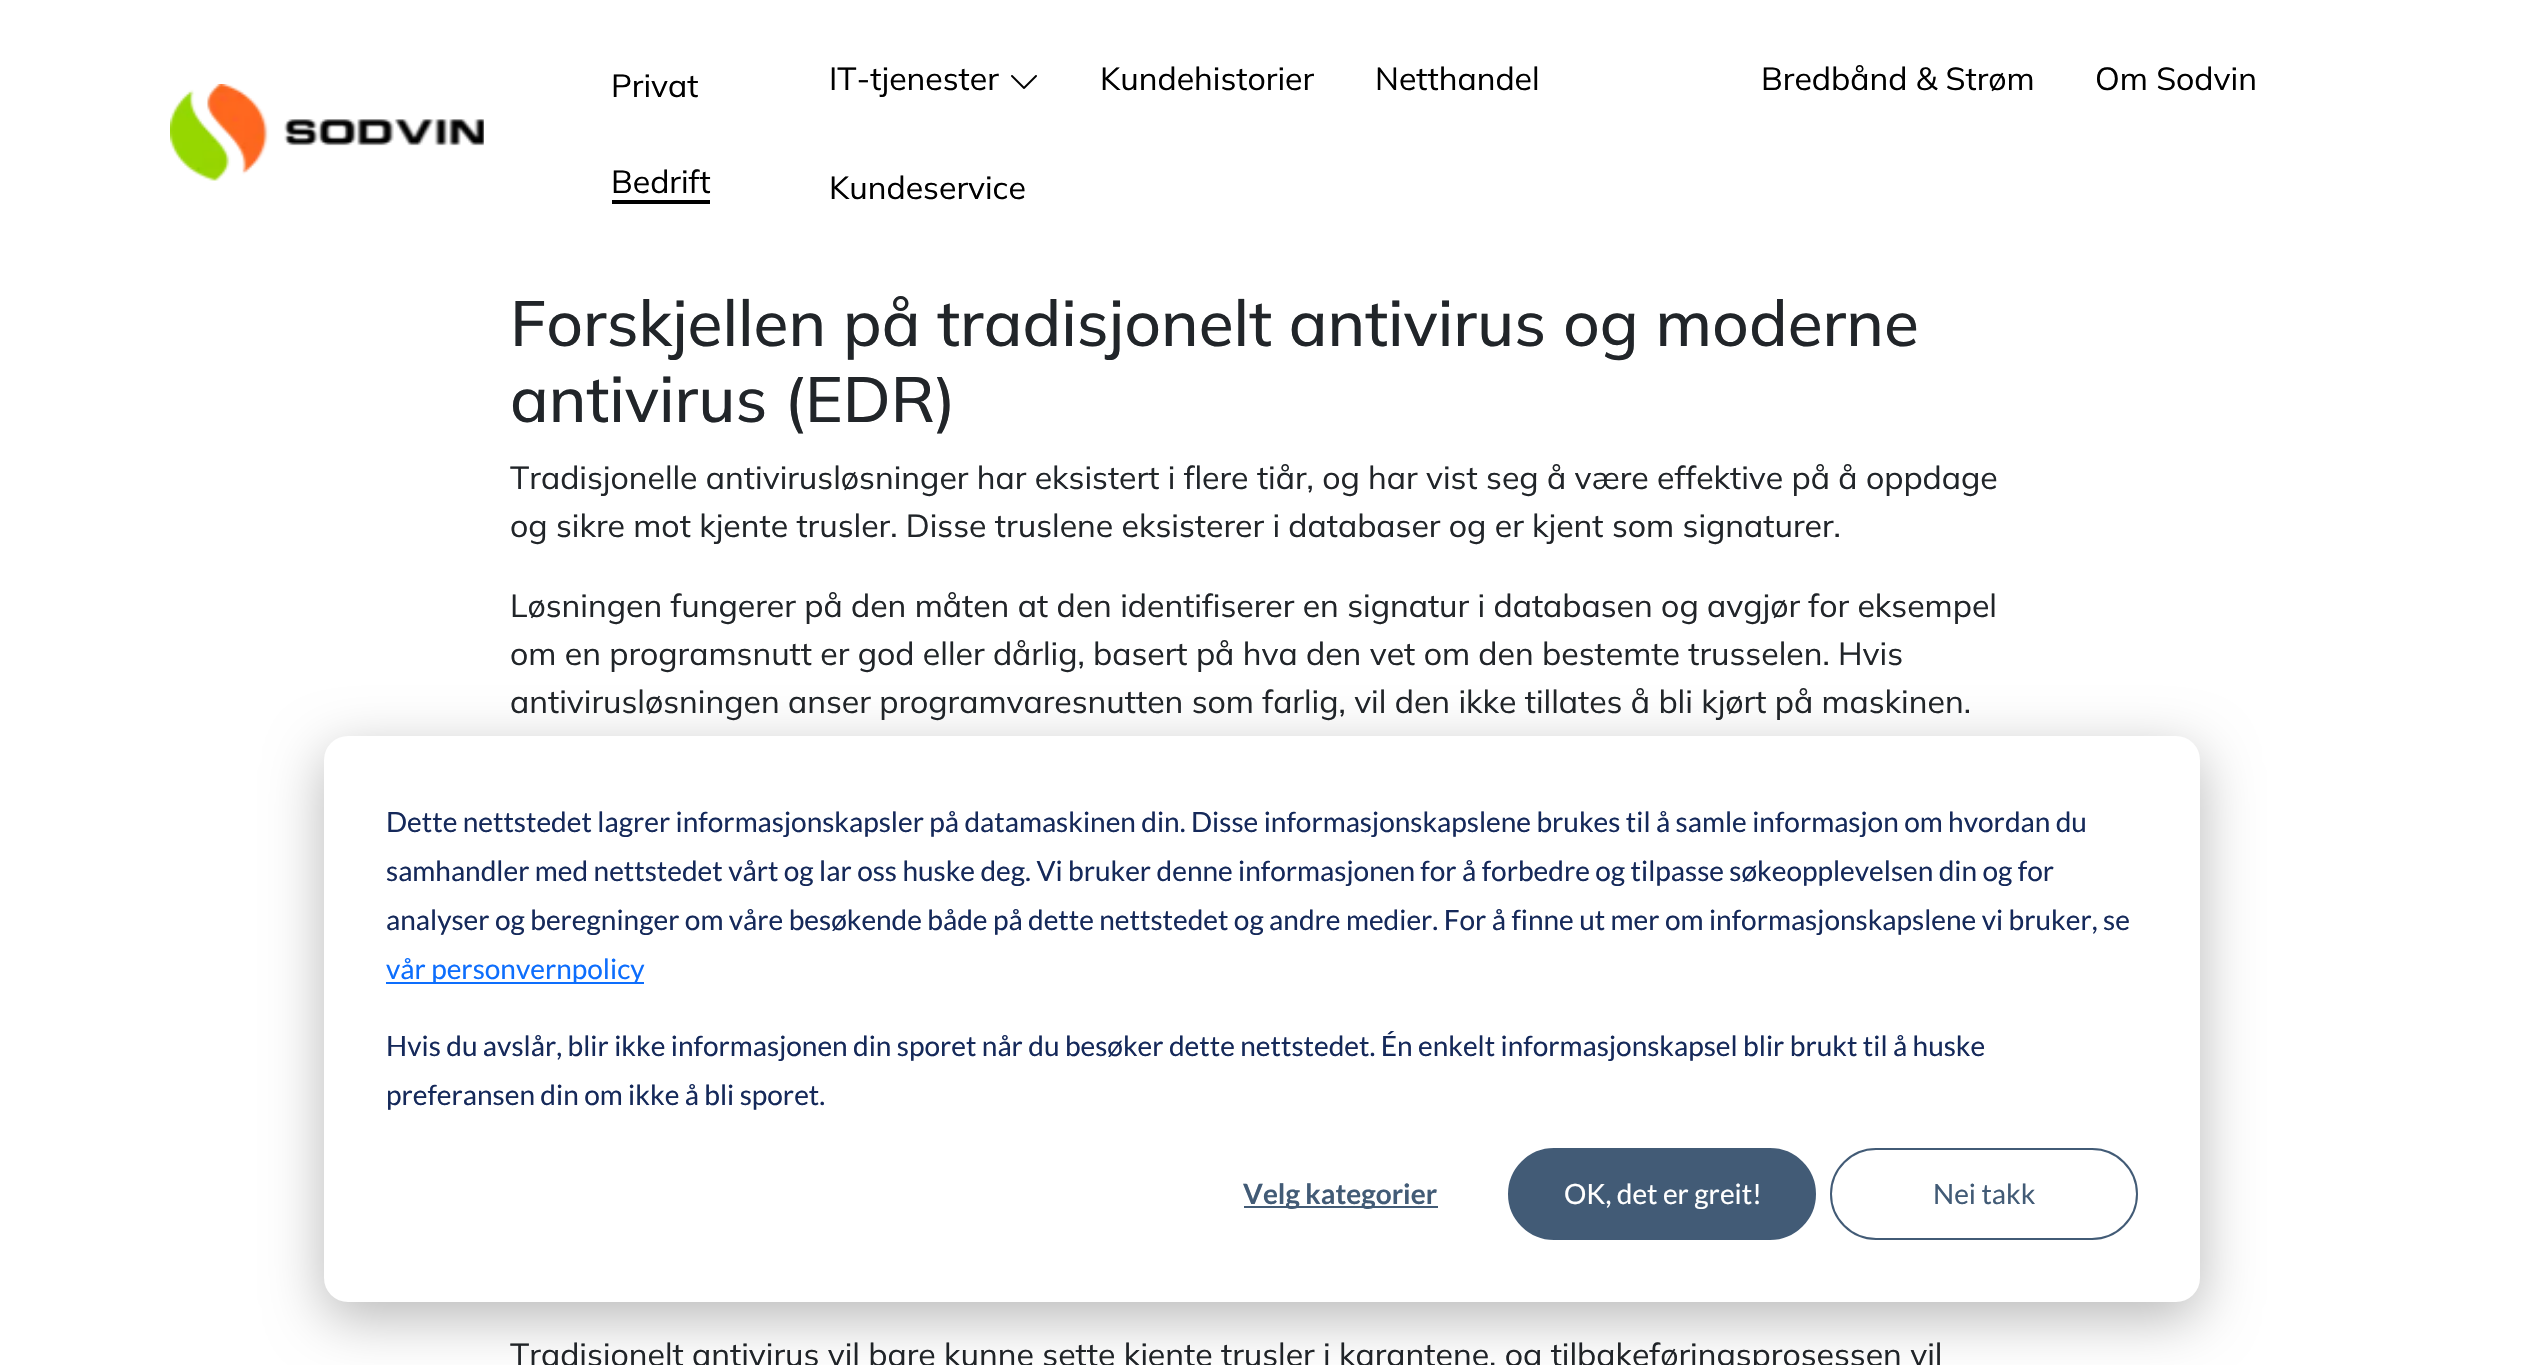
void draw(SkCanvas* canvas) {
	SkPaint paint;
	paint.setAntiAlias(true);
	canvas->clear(0xffffffff);
	canvas->drawImageRect(SkImages::DeferredFromEncodedData(SkData::MakeFromFileName("img1.png")), SkRect::MakeXYWH(170, 84, 314, 97), SkSamplingOptions());
	SkFont f1(fontMgr->matchFamilyStyle("Mulish", SkFontStyle::Normal()), 32);
	f1.setSubpixel(true);
	paint.setColor(0xff000000);
	canvas->drawString("Privat", 611, 97, f1, paint);
	canvas->drawString("Bedrift", 611, 193, f1, paint);
	canvas->drawRect(SkRect::MakeXYWH(612, 200, 98, 4), paint);
	canvas->drawString("IT-tjenester", 829, 90, f1, paint);
	canvas->drawImageRect(SkImages::DeferredFromEncodedData(SkData::MakeFromFileName("img2.png")), SkRect::MakeXYWH(1011, 75, 26, 14), SkSamplingOptions());
	canvas->drawString("Kundehistorier", 1100, 90, f1, paint);
	canvas->drawString("Netthandel", 1375, 90, f1, paint);
	canvas->drawString("Bredbånd & Strøm", 1761, 90, f1, paint);
	canvas->drawString("Om Sodvin", 2095, 90, f1, paint);
	canvas->drawString("Kundeservice", 829, 199, f1, paint);
	SkFont f2(fontMgr->matchFamilyStyle("Mulish", SkFontStyle(500, SkFontStyle::kNormal_Width, SkFontStyle::kUpright_Slant)), 64);
	f2.setSubpixel(true);
	paint.setColor(0xff212529);
	canvas->drawString("Forskjellen på tradisjonelt antivirus og moderne", 510, 346, f2, paint);
	canvas->drawString("antivirus (EDR)", 510, 422, f2, paint);
	canvas->drawString("Tradisjonelle antivirusløsninger har eksistert i flere tiår, og har vist seg å være effektive på å oppdage", 510, 489, f1, paint);
	canvas->drawString("og sikre mot kjente trusler. Disse truslene eksisterer i databaser og er kjent som signaturer.", 510, 537, f1, paint);
	canvas->drawString("Løsningen fungerer på den måten at den identifiserer en signatur i databasen og avgjør for eksempel", 510, 617, f1, paint);
	canvas->drawString("om en programsnutt er god eller dårlig, basert på hva den vet om den bestemte trusselen. Hvis", 510, 665, f1, paint);
	canvas->drawString("antivirusløsningen anser programvaresnutten som farlig, vil den ikke tillates å bli kjørt på maskinen.", 510, 713, f1, paint);
	canvas->drawString("Tradisjonelt antivirus vil bare kunne sette kjente trusler i karantene, og tilbakeføringsprosessen vil", 510, 1366, f1, paint);
	paint.setColor(0x47000000);
	paint.setMaskFilter(SkMaskFilter::MakeBlur(kNormal_SkBlurStyle, 28));
	canvas->drawRoundRect(SkRect::MakeXYWH(324, 752, 1876, 566), 24, 24, paint);
	paint.setMaskFilter(nullptr);
	paint.setColor(0xffffffff);
	canvas->drawRoundRect(SkRect::MakeXYWH(324, 736, 1876, 566), 24, 24, paint);
	SkFont f3(fontMgr->matchFamilyStyle("Lato", SkFontStyle::Normal()), 28);
	f3.setSubpixel(true);
	paint.setColor(0xff15295a);
	canvas->drawString("Dette nettstedet lagrer informasjonskapsler på datamaskinen din. Disse informasjonskapslene brukes til å samle informasjon om hvordan du", 386, 832, f3, paint);
	canvas->drawString("samhandler med nettstedet vårt og lar oss huske deg. Vi bruker denne informasjonen for å forbedre og tilpasse søkeopplevelsen din og for", 386, 881, f3, paint);
	canvas->drawString("analyser og beregninger om våre besøkende både på dette nettstedet og andre medier. For å finne ut mer om informasjonskapslene vi bruker, se", 386, 930, f3, paint);
	paint.setColor(0xff0d6efd);
	canvas->drawRect(SkRect::MakeXYWH(386, 982, 258, 2), paint);
	canvas->drawString("vår personvernpolicy", 386, 979, f3, paint);
	paint.setColor(0xff15295a);
	canvas->drawString("Hvis du avslår, blir ikke informasjonen din sporet når du besøker dette nettstedet. Én enkelt informasjonskapsel blir brukt til å huske", 386, 1056, f3, paint);
	canvas->drawString("preferansen din om ikke å bli sporet.", 386, 1105, f3, paint);
	paint.setColor(0xff425b76);
	canvas->drawRect(SkRect::MakeXYWH(1244, 1206, 194, 2), paint);
	SkFont f4(fontMgr->matchFamilyStyle("Lato", SkFontStyle::Bold()), 28);
	f4.setSubpixel(true);
	canvas->drawString("Velg kategorier", 1243, 1204, f4, paint);
	canvas->drawRoundRect(SkRect::MakeXYWH(1509, 1149, 306, 90), 45, 45, paint);
	paint.setStroke(true);
	paint.setStrokeWidth(2);
	canvas->drawRoundRect(SkRect::MakeXYWH(1509, 1149, 306, 90), 45, 45, paint);
	paint.setStroke(false);
	paint.setColor(0xffffffff);
	canvas->drawString("OK, det er greit!", 1564, 1204, f3, paint);
	paint.setStroke(true);
	paint.setColor(0xff425b76);
	canvas->drawRoundRect(SkRect::MakeXYWH(1831, 1149, 306, 90), 45, 45, paint);
	paint.setStroke(false);
	canvas->drawString("Nei takk", 1933, 1204, f3, paint);
}
